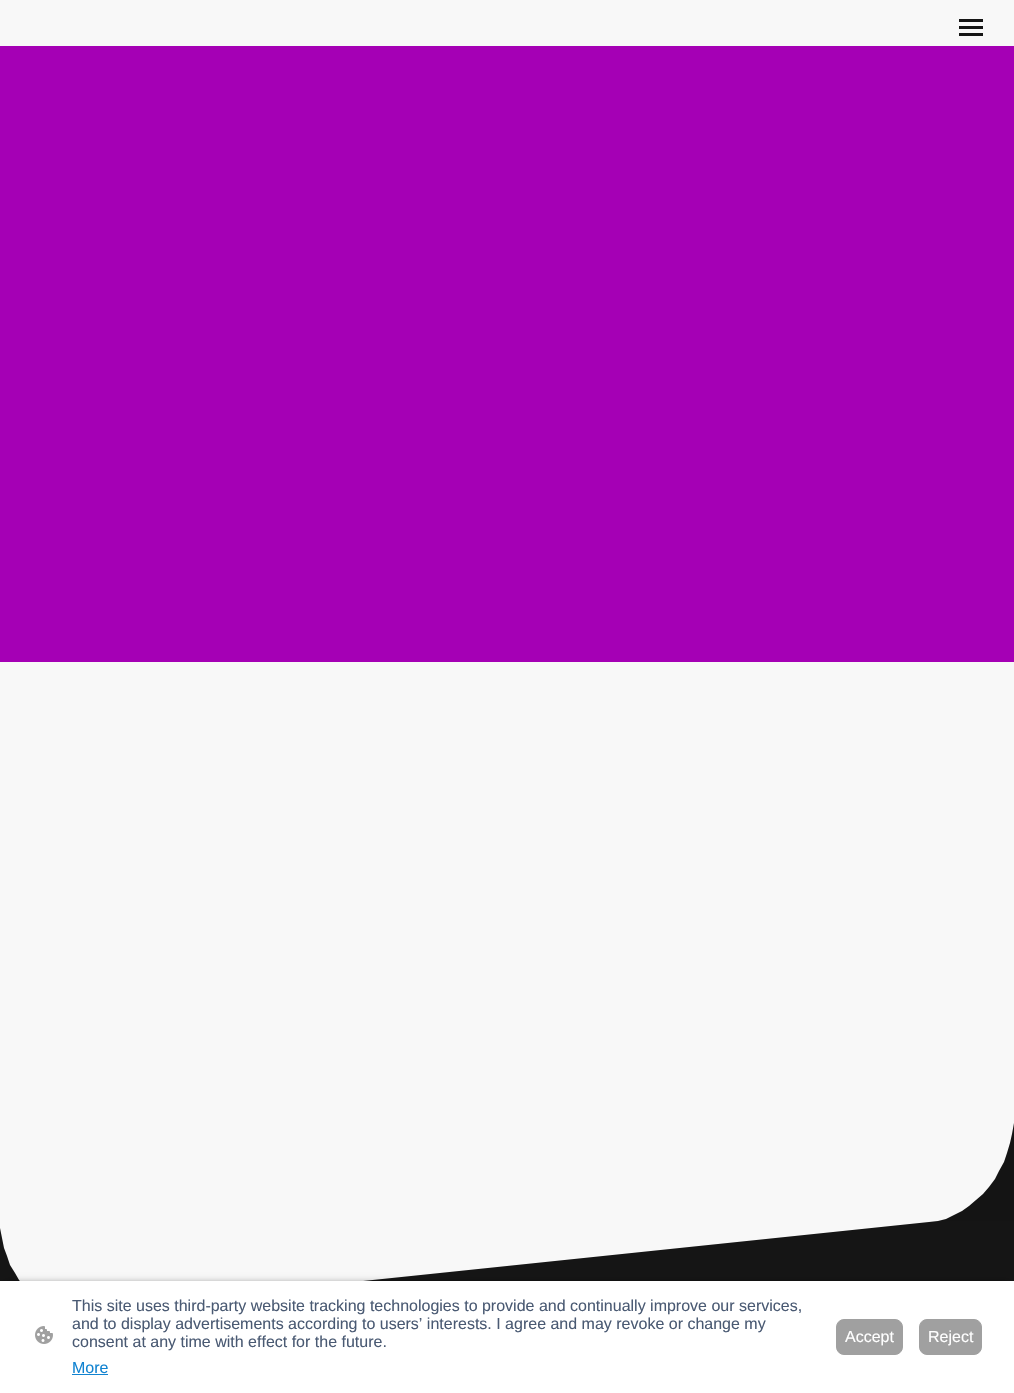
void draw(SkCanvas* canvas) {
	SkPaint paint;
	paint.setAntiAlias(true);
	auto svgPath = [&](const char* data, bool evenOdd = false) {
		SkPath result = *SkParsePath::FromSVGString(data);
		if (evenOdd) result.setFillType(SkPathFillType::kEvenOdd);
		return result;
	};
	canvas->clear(0xfff8f8f8);
	paint.setColor(0xff151515);
	canvas->drawRect(SkRect::MakeXYWH(959, 19, 24, 3), paint);
	canvas->drawRect(SkRect::MakeXYWH(959, 26, 24, 3), paint);
	canvas->drawRect(SkRect::MakeXYWH(959, 33, 24, 3), paint);
	paint.setColor(0xffa500b5);
	canvas->drawRect(SkRect::MakeXYWH(0, 46, 1014, 616), paint);
	paint.setColor(0xff151515);
	canvas->drawPath(svgPath("M1014 1393V1113V1123L1012 1134L1010 1143L1007 1153L1004 1162L999 1171L995 1179L989 1187L983 1194L976 1200L969 1206L962 1211L954 1215L946 1219L938 1221L929 1222L85 1310H76H68L60 1308L52 1305L45 1302L38 1298L31 1292L25 1287L19 1280L15 1273L10 1265L7 1256L4 1248L2 1238L0 1228V1218V1393Z"), paint);
	{
		const SkColor colors[] = {0x12000000, 0x00000000};
		const float stops[] = {0, 1};
		const SkPoint ends[] = {{507, 1113}, {507, 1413}};
		paint.setShader(SkGradientShader::MakeLinear(ends, colors, stops, 2, SkTileMode::kClamp));
		paint.setAlpha(255);
	}
	canvas->drawPath(svgPath("M1014 1393V1113V1123L1012 1134L1010 1143L1007 1153L1004 1162L999 1171L995 1179L989 1187L983 1194L976 1200L969 1206L962 1211L954 1215L946 1219L938 1221L929 1222L85 1310H76H68L60 1308L52 1305L45 1302L38 1298L31 1292L25 1287L19 1280L15 1273L10 1265L7 1256L4 1248L2 1238L0 1228V1218V1393Z"), paint);
	paint.setShader(nullptr);
	paint.setColor(0xa1000000);
	paint.setMaskFilter(SkMaskFilter::MakeBlur(kNormal_SkBlurStyle, 4));
	canvas->drawRect(SkRect::MakeXYWH(6, 1284, 1002, 100), paint);
	paint.setMaskFilter(nullptr);
	paint.setColor(0xffffffff);
	canvas->drawRect(SkRect::MakeXYWH(0, 1281, 1014, 112), paint);
	canvas->drawImageRect(SkImages::DeferredFromEncodedData(SkData::MakeFromFileName("img1.png")), SkRect::MakeXYWH(35, 1326, 18, 18), SkSamplingOptions());
	SkFont f1(fontMgr->matchFamilyStyle("Liberation Sans", SkFontStyle::Normal()), 16);
	f1.setSubpixel(true);
	paint.setColor(0xff4a5a73);
	canvas->drawString("This site uses third-party website tracking technologies to provide and continually improve our services,", 72, 1311, f1, paint);
	canvas->drawString("and to display advertisements according to users’ interests. I agree and may revoke or change my", 72, 1329, f1, paint);
	canvas->drawString("consent at any time with effect for the future.", 72, 1347, f1, paint);
	paint.setColor(0xff1183d1);
	canvas->drawString("More", 72, 1373, f1, paint);
	canvas->drawRect(SkRect::MakeXYWH(72, 1374, 36, 1), paint);
	paint.setColor(0xffa0a0a0);
	canvas->drawRoundRect(SkRect::MakeXYWH(836.5, 1319.5, 66, 35), 7.5, 7.5, paint);
	paint.setStroke(true);
	paint.setStrokeWidth(1);
	canvas->drawRoundRect(SkRect::MakeXYWH(836.5, 1319.5, 66, 35), 7.5, 7.5, paint);
	paint.setStroke(false);
	paint.setColor(0xffffffff);
	canvas->drawString("Accept", 845, 1342, f1, paint);
	paint.setColor(0xffa0a0a0);
	canvas->drawRoundRect(SkRect::MakeXYWH(919.5, 1319.5, 62, 35), 7.5, 7.5, paint);
	paint.setStroke(true);
	canvas->drawRoundRect(SkRect::MakeXYWH(919.5, 1319.5, 62, 35), 7.5, 7.5, paint);
	paint.setStroke(false);
	paint.setColor(0xffffffff);
	canvas->drawString("Reject", 928, 1342, f1, paint);
}
